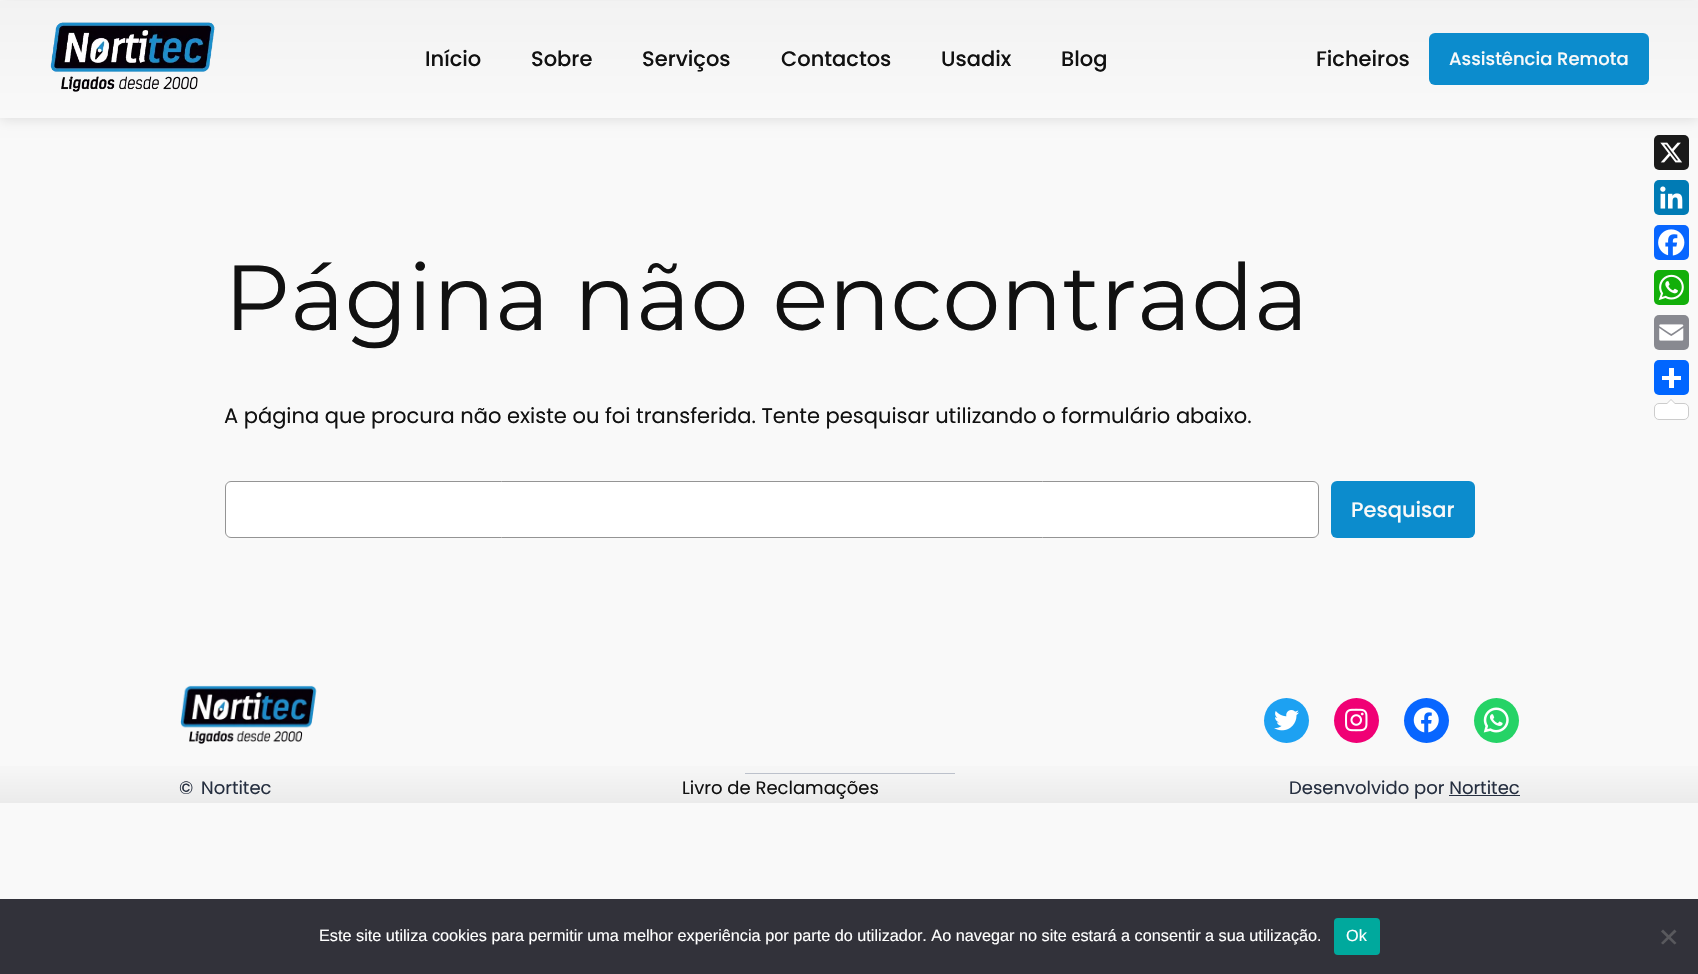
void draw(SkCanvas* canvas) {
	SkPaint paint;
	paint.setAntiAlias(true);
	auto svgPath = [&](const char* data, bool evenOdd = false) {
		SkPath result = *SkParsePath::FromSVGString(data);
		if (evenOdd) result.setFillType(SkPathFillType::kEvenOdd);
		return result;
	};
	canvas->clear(0xfff9f9f9);
	paint.setColor(0x1a000000);
	paint.setMaskFilter(SkMaskFilter::MakeBlur(kNormal_SkBlurStyle, 6));
	canvas->drawRect(SkRect::MakeXYWH(0, 3, 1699, 117), paint);
	paint.setMaskFilter(nullptr);
	{
		const SkColor colors[] = {0xfff2f2f2, 0xfff9f9f9};
		const float stops[] = {0, 1};
		const SkPoint ends[] = {{849, 0}, {849, 118}};
		paint.setShader(SkGradientShader::MakeLinear(ends, colors, stops, 2, SkTileMode::kClamp));
		paint.setAlpha(255);
	}
	canvas->drawRect(SkRect::MakeXYWH(0, 1, 1698, 117), paint);
	canvas->drawImageRect(SkImages::DeferredFromEncodedData(SkData::MakeFromFileName("img1.png")), SkRect::MakeXYWH(50, 22, 165, 70), SkSamplingOptions());
	SkFont f1(fontMgr->matchFamilyStyle("Poppins", SkFontStyle(500, SkFontStyle::kNormal_Width, SkFontStyle::kUpright_Slant)), 21);
	f1.setSubpixel(true);
	paint.setShader(nullptr);
	paint.setColor(0xff111111);
	canvas->drawString("Início", 425, 66, f1, paint);
	canvas->drawString("Sobre", 531, 66, f1, paint);
	canvas->drawString("Serviços", 642, 66, f1, paint);
	canvas->drawString("Contactos", 781, 66, f1, paint);
	canvas->drawString("Usadix", 941, 66, f1, paint);
	canvas->drawString("Blog", 1061, 66, f1, paint);
	canvas->drawString("Ficheiros", 1316, 66, f1, paint);
	paint.setColor(0xff0c8ccd);
	canvas->drawRoundRect(SkRect::MakeXYWH(1429, 33, 220, 52), 6, 6, paint);
	SkFont f2(fontMgr->matchFamilyStyle("Poppins", SkFontStyle(500, SkFontStyle::kNormal_Width, SkFontStyle::kUpright_Slant)), 18);
	f2.setSubpixel(true);
	paint.setColor(0xfff9f9f9);
	canvas->drawString("Assistência Remota", 1449, 65, f2, paint);
	SkFont f3(fontMgr->matchFamilyStyle("Montserrat", SkFontStyle::Normal()), 92.25);
	f3.setSubpixel(true);
	paint.setColor(0xff111111);
	canvas->drawString("Página não encontrada", 224, 330, f3, paint);
	SkFont f4(fontMgr->matchFamilyStyle("Poppins", SkFontStyle::Normal()), 21);
	f4.setSubpixel(true);
	canvas->drawString("A página que procura não existe ou foi transferida. Tente pesquisar utilizando o formulário abaixo.", 224, 423, f4, paint);
	paint.setColor(0xffffffff);
	canvas->drawRoundRect(SkRect::MakeXYWH(225.5, 481.5, 1093, 56), 5.5, 5.5, paint);
	paint.setStroke(true);
	paint.setStrokeWidth(1);
	paint.setColor(0xff949494);
	canvas->drawRoundRect(SkRect::MakeXYWH(225.5, 481.5, 1093, 56), 5.5, 5.5, paint);
	paint.setStroke(false);
	paint.setColor(0xff0c8ccd);
	canvas->drawRoundRect(SkRect::MakeXYWH(1331, 481, 144, 57), 6, 6, paint);
	paint.setColor(0xfff9f9f9);
	canvas->drawString("Pesquisar", 1351, 517, f1, paint);
	{
		const SkColor colors[] = {0xffebebeb, 0xfff9f9f9};
		const float stops[] = {0, 0.33};
		const SkPoint ends[] = {{849, 803}, {849, 668}};
		paint.setShader(SkGradientShader::MakeLinear(ends, colors, stops, 2, SkTileMode::kClamp));
		paint.setAlpha(255);
	}
	canvas->drawRect(SkRect::MakeXYWH(0, 766, 1698, 37), paint);
	canvas->drawImageRect(SkImages::DeferredFromEncodedData(SkData::MakeFromFileName("img2.png")), SkRect::MakeXYWH(180, 685, 137, 59), SkSamplingOptions());
	paint.setShader(nullptr);
	paint.setColor(0xff1da1f2);
	canvas->drawCircle(1286.5, 720.5, 22.5, paint);
	canvas->drawImageRect(SkImages::DeferredFromEncodedData(SkData::MakeFromFileName("img3.png")), SkRect::MakeXYWH(1274, 710, 25, 21), SkSamplingOptions());
	paint.setColor(0xfff00075);
	canvas->drawCircle(1356.5, 720.5, 22.5, paint);
	canvas->drawImageRect(SkImages::DeferredFromEncodedData(SkData::MakeFromFileName("img4.png")), SkRect::MakeXYWH(1345, 708, 23, 24), SkSamplingOptions());
	paint.setColor(0xff0866ff);
	canvas->drawCircle(1426.5, 720.5, 22.5, paint);
	canvas->drawImageRect(SkImages::DeferredFromEncodedData(SkData::MakeFromFileName("img5.png")), SkRect::MakeXYWH(1413, 707, 26, 26), SkSamplingOptions());
	paint.setColor(0xff25d366);
	canvas->drawCircle(1496.5, 720.5, 22.5, paint);
	canvas->drawImageRect(SkImages::DeferredFromEncodedData(SkData::MakeFromFileName("img6.png")), SkRect::MakeXYWH(1483, 707, 26, 26), SkSamplingOptions());
	paint.setColor(0xffbcc1cb);
	canvas->drawRect(SkRect::MakeXYWH(745, 773, 210, 1), paint);
	SkFont f5(fontMgr->matchFamilyStyle("Poppins", SkFontStyle::Normal()), 18);
	f5.setSubpixel(true);
	paint.setColor(0xff262f40);
	canvas->drawString("©", 179, 794, f5, paint);
	canvas->drawString("Nortitec", 201, 794, f5, paint);
	paint.setColor(0xff111111);
	canvas->drawString("Livro de Reclamações", 682, 794, f5, paint);
	paint.setColor(0xff262f40);
	canvas->drawString("Desenvolvido por Nortitec", 1289, 794, f5, paint);
	canvas->drawRect(SkRect::MakeXYWH(1449, 795, 71, 1), paint);
	paint.setColor(0xff1a1a1a);
	canvas->drawRoundRect(SkRect::MakeXYWH(1654, 135, 35, 35), 5, 5, paint);
	canvas->drawImageRect(SkImages::DeferredFromEncodedData(SkData::MakeFromFileName("img7.png")), SkRect::MakeXYWH(1660, 142, 22, 21), SkSamplingOptions());
	paint.setColor(0xff007bb5);
	canvas->drawRoundRect(SkRect::MakeXYWH(1654, 180, 35, 35), 5, 5, paint);
	canvas->drawImageRect(SkImages::DeferredFromEncodedData(SkData::MakeFromFileName("img8.png")), SkRect::MakeXYWH(1660, 186, 23, 23), SkSamplingOptions());
	paint.setColor(0xff0866ff);
	canvas->drawRoundRect(SkRect::MakeXYWH(1654, 225, 35, 35), 5, 5, paint);
	canvas->drawImageRect(SkImages::DeferredFromEncodedData(SkData::MakeFromFileName("img9.png")), SkRect::MakeXYWH(1658, 229, 27, 27), SkSamplingOptions());
	paint.setColor(0xff12af0a);
	canvas->drawRoundRect(SkRect::MakeXYWH(1654, 270, 35, 35), 5, 5, paint);
	canvas->drawImageRect(SkImages::DeferredFromEncodedData(SkData::MakeFromFileName("img10.png")), SkRect::MakeXYWH(1658, 274, 26, 27), SkSamplingOptions());
	paint.setColor(0xff888990);
	canvas->drawRoundRect(SkRect::MakeXYWH(1654, 315, 35, 35), 5, 5, paint);
	canvas->drawImageRect(SkImages::DeferredFromEncodedData(SkData::MakeFromFileName("img11.png")), SkRect::MakeXYWH(1659, 324, 25, 17), SkSamplingOptions());
	paint.setColor(0xff0166ff);
	canvas->drawRoundRect(SkRect::MakeXYWH(1654, 360, 35, 35), 5, 5, paint);
	paint.setColor(0xffffffff);
	canvas->drawRect(SkRect::MakeXYWH(1669, 368, 5, 20), paint);
	canvas->drawRect(SkRect::MakeXYWH(1662, 376, 19, 4), paint);
	canvas->drawRoundRect(SkRect::MakeXYWH(1654.5, 403.5, 34, 16), 4.5, 4.5, paint);
	paint.setStroke(true);
	paint.setColor(0xffcccccc);
	canvas->drawRoundRect(SkRect::MakeXYWH(1654.5, 403.5, 34, 16), 4.5, 4.5, paint);
	paint.setStroke(false);
	canvas->drawPath(svgPath("M1676 404H1666L1671 399Z"), paint);
	paint.setColor(0xffffffff);
	canvas->drawPath(svgPath("M1676 405H1666L1671 400Z"), paint);
	paint.setColor(0xff32323a);
	canvas->drawRect(SkRect::MakeXYWH(0, 899, 1698, 75), paint);
	SkFont f6(fontMgr->matchFamilyStyle("Liberation Sans", SkFontStyle::Normal()), 16.25);
	f6.setSubpixel(true);
	paint.setColor(0xffffffff);
	canvas->drawString("Este site utiliza cookies para permitir uma melhor experiência por parte do utilizador. Ao navegar no site estará a consentir a sua utilização.", 319, 941, f6, paint);
	paint.setColor(0xff00a99d);
	canvas->drawRoundRect(SkRect::MakeXYWH(1334, 918, 46, 37), 4, 4, paint);
	paint.setColor(0xffffffff);
	canvas->drawString("Ok", 1346, 941, f6, paint);
	paint.setColor(0xff59595d);
	canvas->drawPath(svgPath("M1674.5 929.5L1676.5 931.5L1663 944.5L1661 943Z"), paint);
	canvas->drawPath(svgPath("M1661 931.5L1663 929.5L1676.5 943L1674.5 944.5Z"), paint);
}
